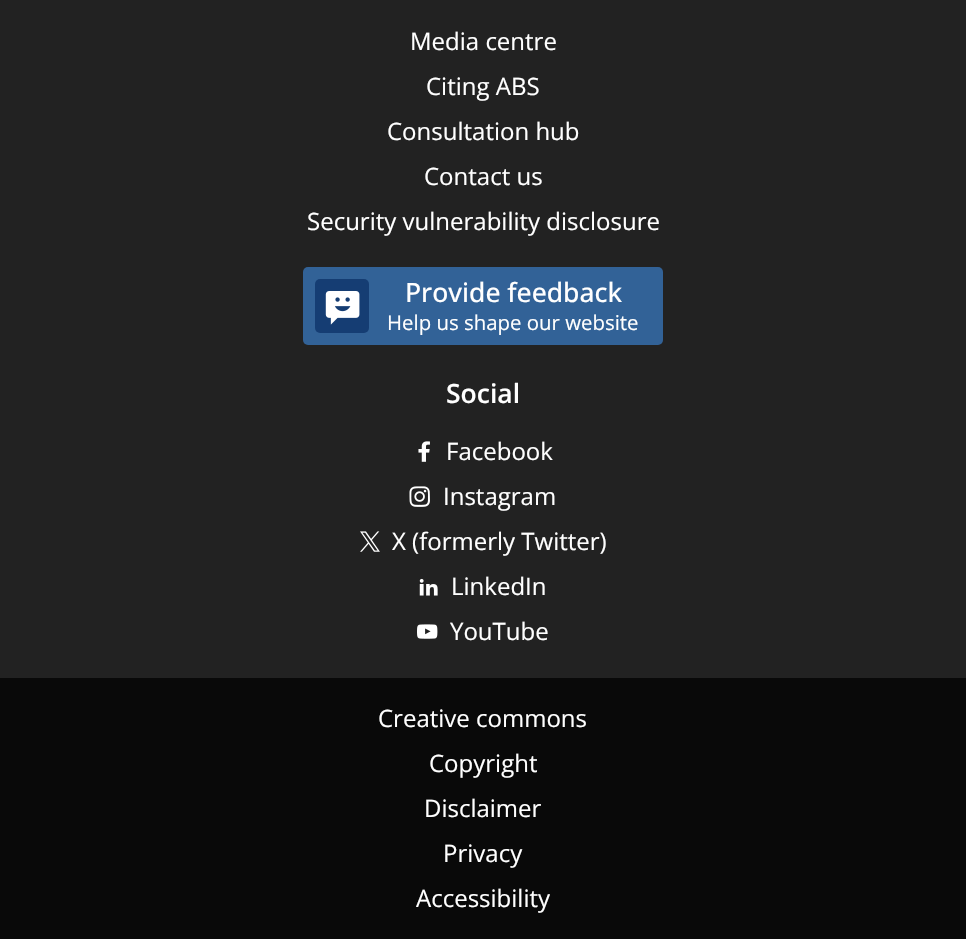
void draw(SkCanvas* canvas) {
	SkPaint paint;
	paint.setAntiAlias(true);
	canvas->clear(0xff222222);
	SkFont f1(fontMgr->matchFamilyStyle("Open Sans", SkFontStyle::Normal()), 24);
	f1.setSubpixel(true);
	paint.setColor(0xffffffff);
	canvas->drawString("Media centre", 410, 50, f1, paint);
	canvas->drawString("Citing ABS", 426, 95, f1, paint);
	canvas->drawString("Consultation hub", 387, 140, f1, paint);
	canvas->drawString("Contact us", 424, 185, f1, paint);
	canvas->drawString("Security vulnerability disclosure", 307, 230, f1, paint);
	paint.setColor(0xff326297);
	canvas->drawRoundRect(SkRect::MakeXYWH(303, 267, 360, 78), 5, 5, paint);
	paint.setColor(0xff153d73);
	canvas->drawRoundRect(SkRect::MakeXYWH(315, 279, 54, 54), 5, 5, paint);
	canvas->drawImageRect(SkImages::DeferredFromEncodedData(SkData::MakeFromFileName("img1.png")), SkRect::MakeXYWH(325, 291, 35, 34), SkSamplingOptions());
	SkFont f2(fontMgr->matchFamilyStyle("Open Sans", SkFontStyle(500, SkFontStyle::kNormal_Width, SkFontStyle::kUpright_Slant)), 26.5);
	f2.setSubpixel(true);
	paint.setColor(0xffffffff);
	canvas->drawString("Provide feedback", 405, 302, f2, paint);
	SkFont f3(fontMgr->matchFamilyStyle("Open Sans", SkFontStyle::Normal()), 20.4);
	f3.setSubpixel(true);
	canvas->drawString("Help us shape our website", 387, 330, f3, paint);
	SkFont f4(fontMgr->matchFamilyStyle("Open Sans", SkFontStyle(600, SkFontStyle::kNormal_Width, SkFontStyle::kUpright_Slant)), 26.5);
	f4.setSubpixel(true);
	canvas->drawString("Social", 446, 403, f4, paint);
	canvas->drawImageRect(SkImages::DeferredFromEncodedData(SkData::MakeFromFileName("img2.png")), SkRect::MakeXYWH(418, 441, 12, 21), SkSamplingOptions());
	canvas->drawString("Facebook", 446, 460, f1, paint);
	canvas->drawImageRect(SkImages::DeferredFromEncodedData(SkData::MakeFromFileName("img3.png")), SkRect::MakeXYWH(409, 486, 21, 21), SkSamplingOptions());
	canvas->drawString("Instagram", 443, 505, f1, paint);
	canvas->drawImageRect(SkImages::DeferredFromEncodedData(SkData::MakeFromFileName("img4.png")), SkRect::MakeXYWH(360, 531, 20, 21), SkSamplingOptions());
	canvas->drawString("X (formerly Twitter)", 392, 550, f1, paint);
	canvas->drawImageRect(SkImages::DeferredFromEncodedData(SkData::MakeFromFileName("img5.png")), SkRect::MakeXYWH(419, 578, 19, 18), SkSamplingOptions());
	canvas->drawString("LinkedIn", 451, 595, f1, paint);
	canvas->drawImageRect(SkImages::DeferredFromEncodedData(SkData::MakeFromFileName("img6.png")), SkRect::MakeXYWH(417, 624, 21, 15), SkSamplingOptions());
	canvas->drawString("YouTube", 450, 640, f1, paint);
	paint.setColor(0xff090909);
	canvas->drawRect(SkRect::MakeXYWH(0, 678, 966, 261), paint);
	paint.setColor(0xffffffff);
	canvas->drawString("Creative commons", 378, 727, f1, paint);
	canvas->drawString("Copyright", 429, 772, f1, paint);
	canvas->drawString("Disclaimer", 424, 817, f1, paint);
	canvas->drawString("Privacy", 443, 862, f1, paint);
	canvas->drawString("Accessibility", 416, 907, f1, paint);
}
